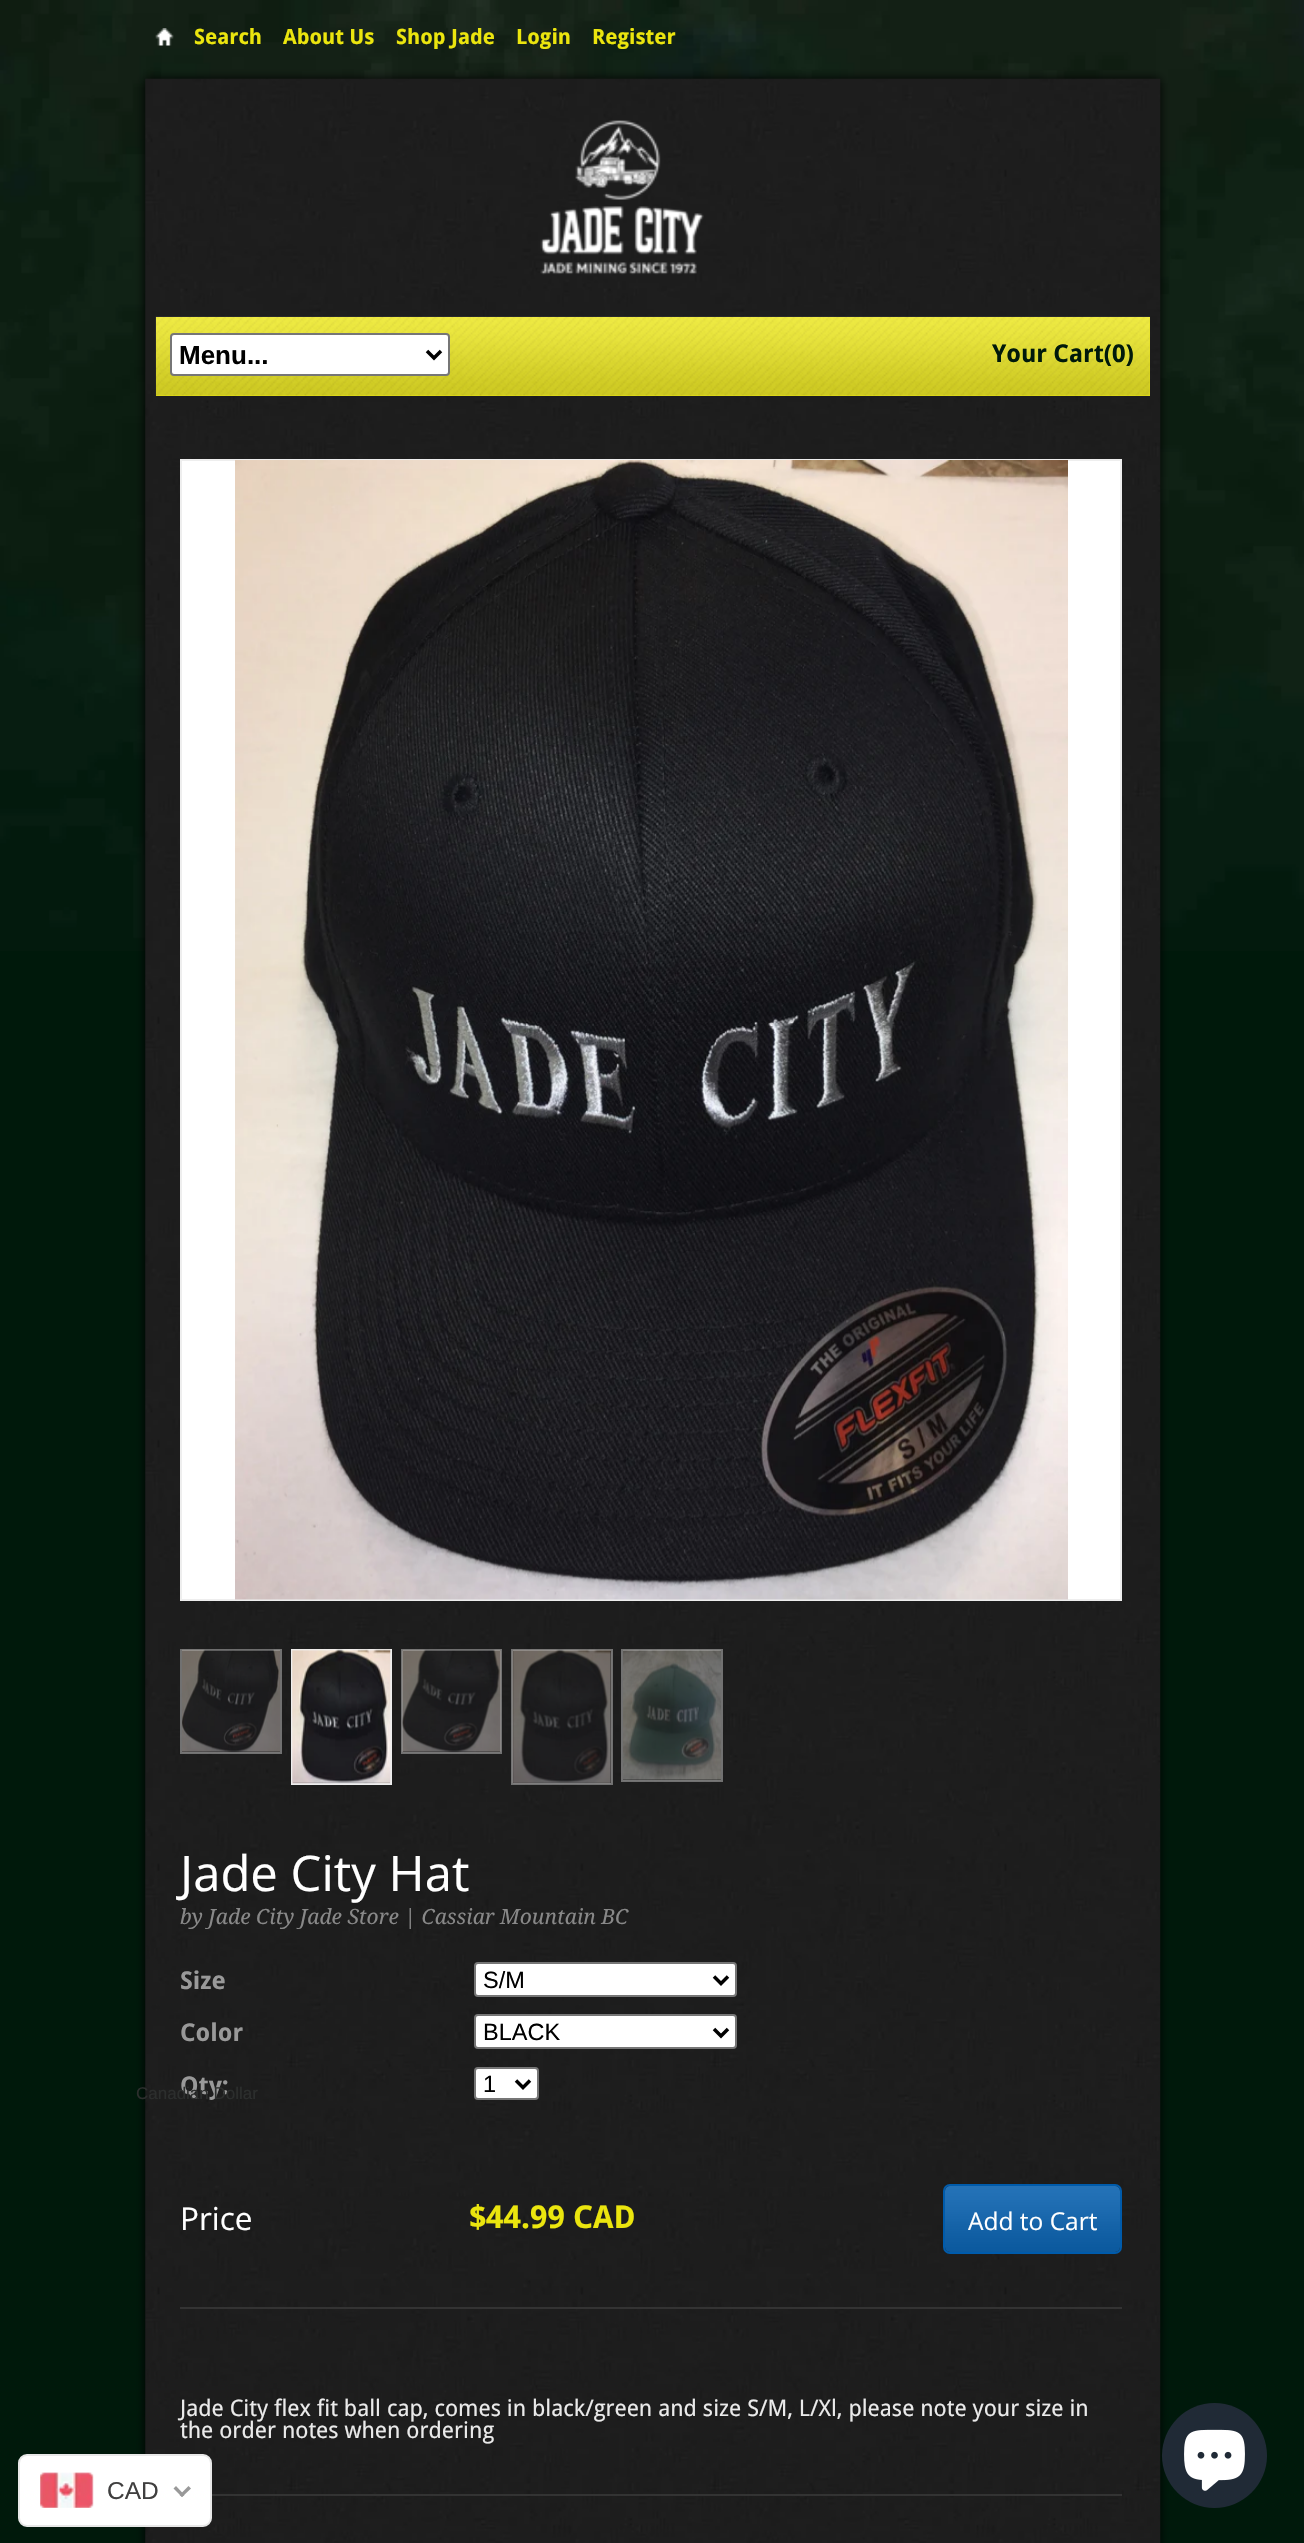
void draw(SkCanvas* canvas) {
	SkPaint paint;
	paint.setAntiAlias(true);
	auto svgPath = [&](const char* data, bool evenOdd = false) {
		SkPath result = *SkParsePath::FromSVGString(data);
		if (evenOdd) result.setFillType(SkPathFillType::kEvenOdd);
		return result;
	};
	canvas->clear(0xff00190b);
	canvas->drawImageRect(SkImages::DeferredFromEncodedData(SkData::MakeFromFileName("img1.png")), SkRect::MakeXYWH(0, 0, 1304, 951), SkSamplingOptions());
	canvas->drawImageRect(SkImages::DeferredFromEncodedData(SkData::MakeFromFileName("img2.png")), SkRect::MakeXYWH(155, 28, 19, 18), SkSamplingOptions());
	SkFont f1(fontMgr->matchFamilyStyle("Droid Sans", SkFontStyle::Bold()), 21);
	f1.setSubpixel(true);
	paint.setColor(0xffebe50e);
	canvas->drawString("Search", 194, 44, f1, paint);
	canvas->drawString("About Us", 283, 44, f1, paint);
	canvas->drawString("Shop Jade", 396, 44, f1, paint);
	canvas->drawString("Login", 516, 44, f1, paint);
	canvas->drawString("Register", 592, 44, f1, paint);
	paint.setColor(0xff000000);
	paint.setMaskFilter(SkMaskFilter::MakeBlur(kNormal_SkBlurStyle, 5));
	canvas->drawRect(SkRect::MakeXYWH(145, 79, 1015, 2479), paint);
	paint.setMaskFilter(nullptr);
	canvas->drawImageRect(SkImages::DeferredFromEncodedData(SkData::MakeFromFileName("img3.png")), SkRect::MakeXYWH(145, 78, 1016, 2465), SkSamplingOptions());
	paint.setColor(0xffebe50e);
	canvas->drawRect(SkRect::MakeXYWH(156, 317, 994, 79), paint);
	canvas->drawImageRect(SkImages::DeferredFromEncodedData(SkData::MakeFromFileName("img5.png")), SkRect::MakeXYWH(155, 316, 995, 80), SkSamplingOptions());
	SkFont f2(fontMgr->matchFamilyStyle("Droid Sans", SkFontStyle::Bold()), 24.5);
	f2.setSubpixel(true);
	paint.setColor(0xff00190b);
	canvas->drawString("Your Cart(0)", 992, 362, f2, paint);
	canvas->drawImageRect(SkImages::DeferredFromEncodedData(SkData::MakeFromFileName("img4.png")), SkRect::MakeXYWH(540, 120, 164, 155), SkSamplingOptions());
	paint.setColor(0xffffffff);
	canvas->drawRoundRect(SkRect::MakeXYWH(171, 334, 278, 41), 3, 3, paint);
	paint.setStroke(true);
	paint.setStrokeWidth(2);
	paint.setColor(0xff767676);
	canvas->drawRoundRect(SkRect::MakeXYWH(171, 334, 278, 41), 3, 3, paint);
	paint.setStrokeWidth(3.5);
	paint.setColor(0xff000000);
	canvas->drawPath(svgPath("M427 351L434 358L441 351"), paint);
	SkFont f3(fontMgr->matchFamilyStyle("Liberation Sans", SkFontStyle::Bold()), 26);
	f3.setSubpixel(true);
	paint.setStroke(false);
	canvas->drawString("Menu...", 179, 364, f3, paint);
	paint.setColor(0xffffffff);
	canvas->drawRect(SkRect::MakeXYWH(181, 460, 940, 1140), paint);
	paint.setStroke(true);
	paint.setStrokeWidth(2);
	paint.setColor(0xffeeeeee);
	canvas->drawRect(SkRect::MakeXYWH(181, 460, 940, 1140), paint);
	canvas->drawImageRect(SkImages::DeferredFromEncodedData(SkData::MakeFromFileName("img6.png")), SkRect::MakeXYWH(235, 460, 833, 1140), SkSamplingOptions());
	paint.setColor(0x66eeeeee);
	canvas->drawRect(SkRect::MakeXYWH(181, 1650, 100, 103), paint);
	canvas->drawImageRect(SkImages::DeferredFromEncodedData(SkData::MakeFromFileName("img7.png")), SkRect::MakeXYWH(182, 1649, 98, 104), SkSamplingOptions());
	paint.setColor(0xffeeeeee);
	canvas->drawRect(SkRect::MakeXYWH(292, 1650, 99, 134), paint);
	canvas->drawImageRect(SkImages::DeferredFromEncodedData(SkData::MakeFromFileName("img8.png")), SkRect::MakeXYWH(292, 1649, 99, 135), SkSamplingOptions());
	paint.setColor(0x66eeeeee);
	canvas->drawRect(SkRect::MakeXYWH(402, 1650, 99, 103), paint);
	canvas->drawImageRect(SkImages::DeferredFromEncodedData(SkData::MakeFromFileName("img9.png")), SkRect::MakeXYWH(402, 1649, 99, 104), SkSamplingOptions());
	canvas->drawRect(SkRect::MakeXYWH(512, 1650, 100, 134), paint);
	canvas->drawImageRect(SkImages::DeferredFromEncodedData(SkData::MakeFromFileName("img10.png")), SkRect::MakeXYWH(512, 1649, 100, 135), SkSamplingOptions());
	canvas->drawRect(SkRect::MakeXYWH(622, 1650, 100, 131), paint);
	canvas->drawImageRect(SkImages::DeferredFromEncodedData(SkData::MakeFromFileName("img11.png")), SkRect::MakeXYWH(623, 1649, 98, 132), SkSamplingOptions());
	SkFont f4(fontMgr->matchFamilyStyle("Open Sans", SkFontStyle::Normal()), 49);
	f4.setSubpixel(true);
	paint.setStroke(false);
	paint.setColor(0xffffffff);
	canvas->drawString("Jade City Hat", 180, 1891, f4, paint);
	SkFont f5(fontMgr->matchFamilyStyle("Droid Serif", SkFontStyle::Italic()), 21);
	f5.setSubpixel(true);
	paint.setColor(0xff888888);
	canvas->drawString("by Jade City Jade Store | Cassiar Mountain BC", 180, 1924, f5, paint);
	paint.setColor(0xff999999);
	canvas->drawString("Size", 180, 1989, f2, paint);
	paint.setColor(0xffffffff);
	canvas->drawRoundRect(SkRect::MakeXYWH(475, 1963, 261, 33), 3, 3, paint);
	paint.setStroke(true);
	paint.setColor(0xff767676);
	canvas->drawRoundRect(SkRect::MakeXYWH(475, 1963, 261, 33), 3, 3, paint);
	paint.setStrokeWidth(3.5);
	paint.setColor(0xff000000);
	canvas->drawPath(svgPath("M714 1976.5L721 1983.5L728 1976.5"), paint);
	SkFont f6(fontMgr->matchFamilyStyle("Liberation Sans", SkFontStyle::Normal()), 23.5);
	f6.setSubpixel(true);
	paint.setStroke(false);
	canvas->drawString("S/M", 483, 1988, f6, paint);
	paint.setColor(0xff999999);
	canvas->drawString("Color", 180, 2041, f2, paint);
	paint.setColor(0xffffffff);
	canvas->drawRoundRect(SkRect::MakeXYWH(475, 2015, 261, 33), 3, 3, paint);
	paint.setStroke(true);
	paint.setStrokeWidth(2);
	paint.setColor(0xff767676);
	canvas->drawRoundRect(SkRect::MakeXYWH(475, 2015, 261, 33), 3, 3, paint);
	paint.setStrokeWidth(3.5);
	paint.setColor(0xff000000);
	canvas->drawPath(svgPath("M714 2029L721 2036L728 2029"), paint);
	paint.setStroke(false);
	canvas->drawString("BLACK", 483, 2040, f6, paint);
	paint.setColor(0xff999999);
	canvas->drawString("Qty:", 180, 2094, f2, paint);
	paint.setColor(0xffffffff);
	canvas->drawRoundRect(SkRect::MakeXYWH(475, 2068, 63, 31), 3, 3, paint);
	paint.setStroke(true);
	paint.setStrokeWidth(2);
	paint.setColor(0xff767676);
	canvas->drawRoundRect(SkRect::MakeXYWH(475, 2068, 63, 31), 3, 3, paint);
	paint.setStrokeWidth(3.5);
	paint.setColor(0xff000000);
	canvas->drawPath(svgPath("M516 2080.5L523 2087.5L530 2080.5"), paint);
	paint.setStroke(false);
	canvas->drawString("1", 483, 2092, f6, paint);
	paint.setColor(0xff333333);
	canvas->drawRect(SkRect::MakeXYWH(180, 2307, 942, 2), paint);
	SkFont f7(fontMgr->matchFamilyStyle("Open Sans", SkFontStyle::Normal()), 31.5);
	f7.setSubpixel(true);
	paint.setColor(0xffffffff);
	canvas->drawString("Price", 180, 2230, f7, paint);
	SkFont f8(fontMgr->matchFamilyStyle("Droid Sans", SkFontStyle::Bold()), 31.5);
	f8.setSubpixel(true);
	paint.setColor(0xffebe50e);
	canvas->drawString("$44.99 CAD", 469, 2228, f8, paint);
	paint.setColor(0xff005bab);
	canvas->drawRoundRect(SkRect::MakeXYWH(945, 2186, 175, 66), 5, 5, paint);
	canvas->drawImageRect(SkImages::DeferredFromEncodedData(SkData::MakeFromFileName("img12.png")), SkRect::MakeXYWH(945, 2186, 175, 66), SkSamplingOptions());
	paint.setStroke(true);
	paint.setStrokeWidth(2);
	canvas->drawRoundRect(SkRect::MakeXYWH(944, 2185, 177, 68), 6, 6, paint);
	SkFont f9(fontMgr->matchFamilyStyle("Open Sans", SkFontStyle::Normal()), 24.5);
	f9.setSubpixel(true);
	paint.setStroke(false);
	paint.setColor(0xffffffff);
	canvas->drawString("Add to Cart", 968, 2230, f9, paint);
	SkFont f10(fontMgr->matchFamilyStyle("Droid Sans", SkFontStyle::Normal()), 22.75);
	f10.setSubpixel(true);
	paint.setColor(0xffeaeaea);
	canvas->drawString("Jade City flex fit ball cap, comes in black/green and size S/M, L/Xl, please note your size in", 180, 2416, f10, paint);
	canvas->drawString("the order notes when ordering", 180, 2438, f10, paint);
	paint.setColor(0xff333333);
	canvas->drawRect(SkRect::MakeXYWH(212, 2494, 910, 2), paint);
	paint.setColor(0xffffffff);
	canvas->drawRoundRect(SkRect::MakeXYWH(19, 2455, 192, 71), 8, 8, paint);
	paint.setStroke(true);
	paint.setColor(0xffe8e8e8);
	canvas->drawRoundRect(SkRect::MakeXYWH(19, 2455, 192, 71), 8, 8, paint);
	SkFont f11(fontMgr->matchFamilyStyle("Liberation Sans", SkFontStyle::Normal()), 17);
	f11.setSubpixel(true);
	paint.setStroke(false);
	paint.setColor(0xff2c2e2d);
	canvas->drawString("Canadian Dollar", 136, 2099, f11, paint);
	canvas->drawImageRect(SkImages::DeferredFromEncodedData(SkData::MakeFromFileName("img13.png")), SkRect::MakeXYWH(40, 2472, 54, 36), SkSamplingOptions());
	SkFont f12(fontMgr->matchFamilyStyle("Liberation Sans", SkFontStyle::Normal()), 24.5);
	f12.setSubpixel(true);
	paint.setColor(0xff403f3f);
	canvas->drawString("CAD", 107, 2499, f12, paint);
	paint.setColor(0xff999999);
	canvas->drawPath(svgPath("M188.5 2486L191 2488.5L182 2497L179.5 2495Z"), paint);
	canvas->drawPath(svgPath("M176 2486L184.5 2495L182 2497L173.5 2488.5Z"), paint);
	paint.setColor(0xff202a36);
	canvas->drawCircle(1214.5, 2455.5, 52.5, paint);
	canvas->drawImageRect(SkImages::DeferredFromEncodedData(SkData::MakeFromFileName("img14.png")), SkRect::MakeXYWH(1184, 2429, 61, 62), SkSamplingOptions());
}
